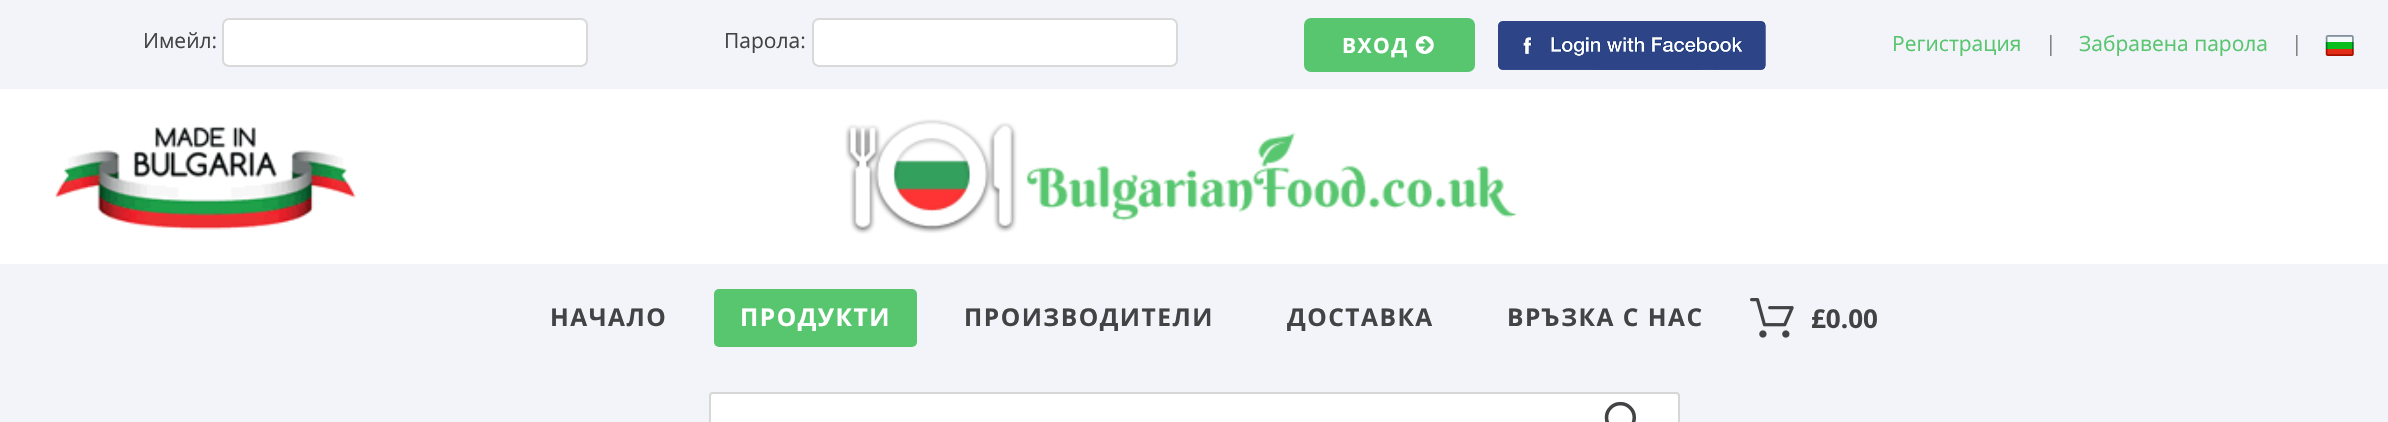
void draw(SkCanvas* canvas) {
	SkPaint paint;
	paint.setAntiAlias(true);
	auto spacedText = [&](const char* s, float x, float y, const SkFont& font, const SkPaint& ink, float letter, float word) {
		std::vector<SkGlyphID> glyphs(font.countText(s, strlen(s), SkTextEncoding::kUTF8));
		std::vector<float> xs(glyphs.size());
		font.textToGlyphs(s, strlen(s), SkTextEncoding::kUTF8, glyphs);
		font.getXPos(glyphs, xs, x);
		float extra = 0;
		for (size_t i = 0; i < glyphs.size(); i++) {
			xs[i] += extra;
			extra += letter + word * (glyphs[i] == font.unicharToGlyph(' '));
		}
		canvas->drawTextBlob(SkTextBlob::MakeFromPosHGlyphs(glyphs, xs, y, font), 0, 0, ink);
	};
	canvas->clear(0xffffffff);
	paint.setColor(0xfff3f4f9);
	canvas->drawRect(SkRect::MakeXYWH(0, 0, 2388, 89), paint);
	SkFont f1(fontMgr->matchFamilyStyle("Open Sans", SkFontStyle::Normal()), 21);
	f1.setSubpixel(true);
	paint.setColor(0xff434345);
	canvas->drawString("Имейл:", 143, 48, f1, paint);
	paint.setColor(0xffffffff);
	canvas->drawRoundRect(SkRect::MakeXYWH(223, 19, 364, 47), 6, 6, paint);
	paint.setStroke(true);
	paint.setStrokeWidth(2);
	paint.setColor(0xffd9d9d9);
	canvas->drawRoundRect(SkRect::MakeXYWH(223, 19, 364, 47), 6, 6, paint);
	paint.setStroke(false);
	paint.setColor(0xff434345);
	canvas->drawString("Парола:", 724, 48, f1, paint);
	paint.setColor(0xffffffff);
	canvas->drawRoundRect(SkRect::MakeXYWH(813, 19, 364, 47), 6, 6, paint);
	paint.setStroke(true);
	paint.setColor(0xffd9d9d9);
	canvas->drawRoundRect(SkRect::MakeXYWH(813, 19, 364, 47), 6, 6, paint);
	paint.setStroke(false);
	paint.setColor(0xff58c56f);
	canvas->drawRoundRect(SkRect::MakeXYWH(1306, 20, 167, 50), 5, 5, paint);
	paint.setStroke(true);
	paint.setStrokeWidth(4);
	canvas->drawRoundRect(SkRect::MakeXYWH(1306, 20, 167, 50), 5, 5, paint);
	SkFont f2(fontMgr->matchFamilyStyle("Open Sans", SkFontStyle::Bold()), 21);
	f2.setSubpixel(true);
	paint.setStroke(false);
	paint.setColor(0xffffffff);
	spacedText("ВХОД", 1342, 53, f2, paint, 1.5, 0);
	canvas->drawImageRect(SkImages::DeferredFromEncodedData(SkData::MakeFromFileName("img1.png")), SkRect::MakeXYWH(1415, 36, 19, 18), SkSamplingOptions());
	canvas->drawImageRect(SkImages::DeferredFromEncodedData(SkData::MakeFromFileName("img2.png")), SkRect::MakeXYWH(1498, 21, 268, 49), SkSamplingOptions());
	paint.setColor(0xff58c56f);
	canvas->drawString("Регистрация", 1892, 51, f1, paint);
	paint.setColor(0xff808080);
	canvas->drawString("|", 2045, 51, f1, paint);
	paint.setColor(0xff58c56f);
	canvas->drawString("Забравена парола", 2079, 51, f1, paint);
	paint.setColor(0xff808080);
	canvas->drawString("|", 2291, 51, f1, paint);
	canvas->drawImageRect(SkImages::DeferredFromEncodedData(SkData::MakeFromFileName("img3.png")), SkRect::MakeXYWH(2325, 35, 29, 21), SkSamplingOptions());
	canvas->drawImageRect(SkImages::DeferredFromEncodedData(SkData::MakeFromFileName("img4.png")), SkRect::MakeXYWH(55, 126, 301, 104), SkSamplingOptions());
	canvas->drawImageRect(SkImages::DeferredFromEncodedData(SkData::MakeFromFileName("img5.png")), SkRect::MakeXYWH(845, 119, 672, 115), SkSamplingOptions());
	paint.setColor(0xfff3f4f9);
	canvas->drawRect(SkRect::MakeXYWH(0, 264, 2388, 158), paint);
	SkFont f3(fontMgr->matchFamilyStyle("Open Sans", SkFontStyle::Bold()), 24.5);
	f3.setSubpixel(true);
	paint.setColor(0xff434345);
	spacedText("НАЧАЛО", 550, 326, f3, paint, 1.5, 0);
	paint.setColor(0xff58c56f);
	canvas->drawRoundRect(SkRect::MakeXYWH(714, 289, 203, 58), 5, 5, paint);
	paint.setColor(0xffffffff);
	spacedText("ПРОДУКТИ", 740, 326, f3, paint, 1.5, 0);
	paint.setColor(0xff434345);
	spacedText("ПРОИЗВОДИТЕЛИ", 964, 326, f3, paint, 1.5, 0);
	spacedText("ДОСТАВКА", 1287, 326, f3, paint, 1.5, 0);
	spacedText("ВРЪЗКА С НАС", 1507, 326, f3, paint, 1.5, 0);
	canvas->drawImageRect(SkImages::DeferredFromEncodedData(SkData::MakeFromFileName("img6.png")), SkRect::MakeXYWH(1750, 298, 44, 40), SkSamplingOptions());
	SkFont f4(fontMgr->matchFamilyStyle("Open Sans", SkFontStyle::Bold()), 26);
	f4.setSubpixel(true);
	canvas->drawString("£0.00", 1811, 328, f4, paint);
	paint.setColor(0xffffffff);
	canvas->drawRoundRect(SkRect::MakeXYWH(710, 393, 969, 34), 3, 3, paint);
	paint.setStroke(true);
	paint.setStrokeWidth(2);
	paint.setColor(0xffd7d7d7);
	canvas->drawRoundRect(SkRect::MakeXYWH(710, 393, 969, 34), 3, 3, paint);
	canvas->drawImageRect(SkImages::DeferredFromEncodedData(SkData::MakeFromFileName("img7.png")), SkRect::MakeXYWH(1604, 401, 32, 21), SkSamplingOptions());
}
